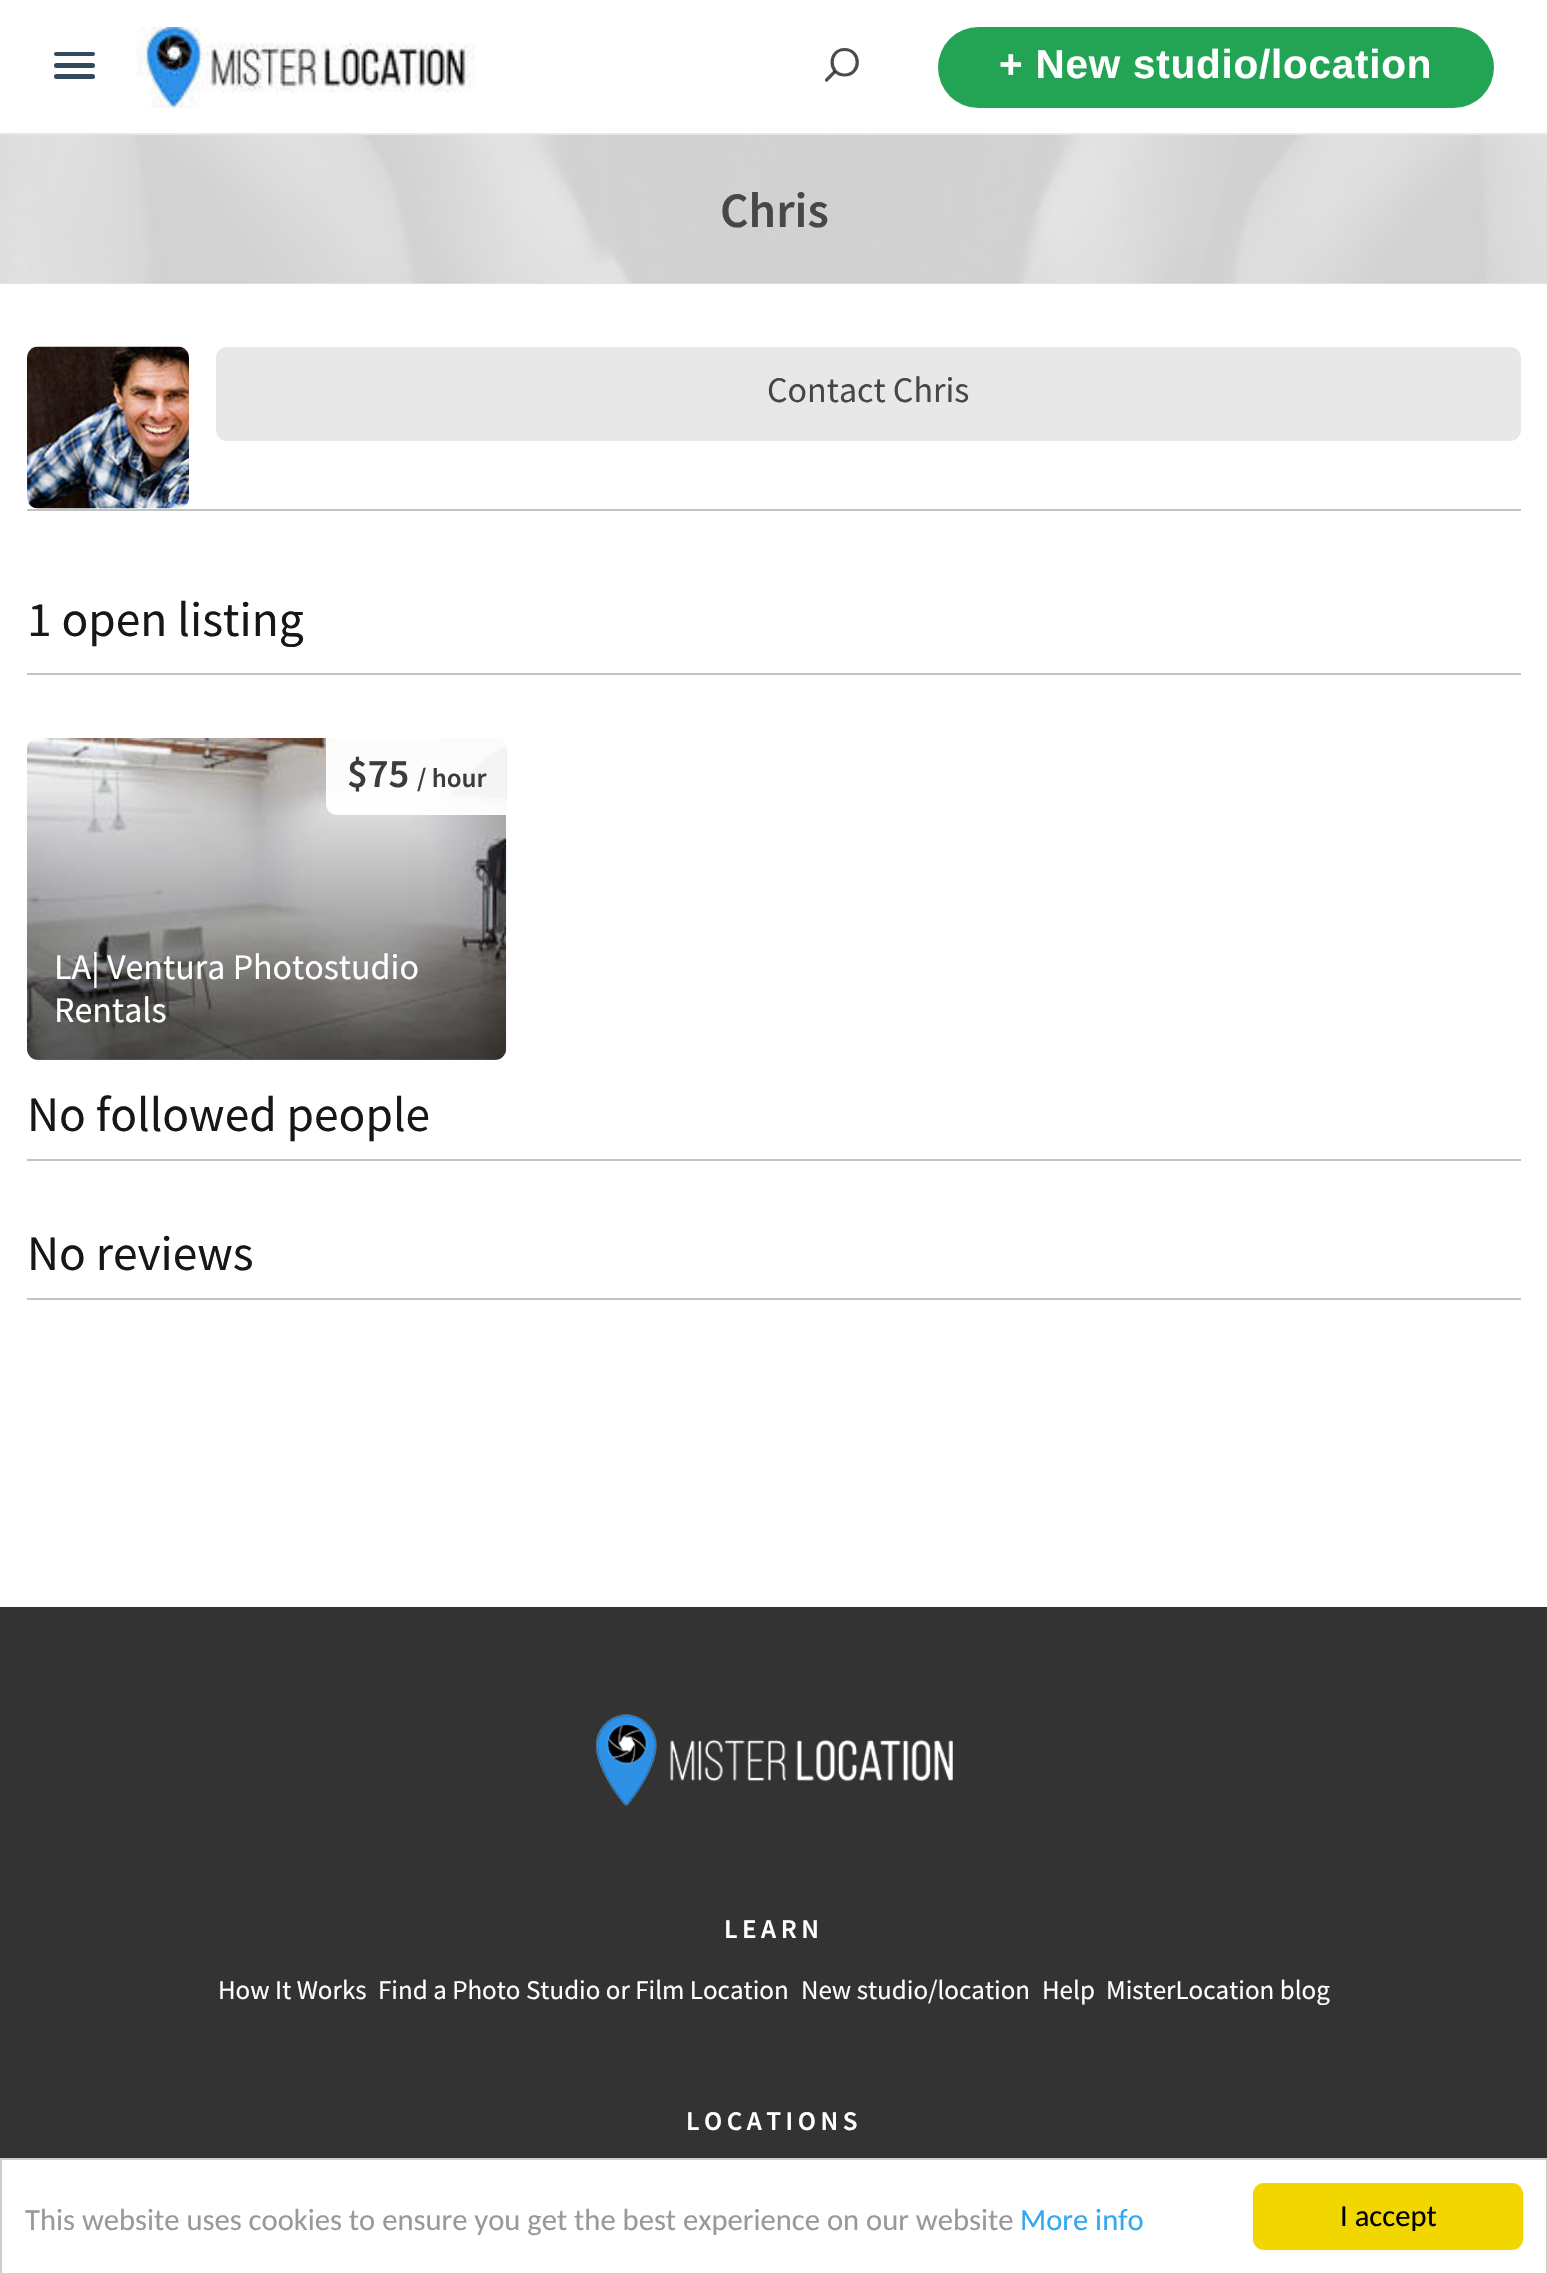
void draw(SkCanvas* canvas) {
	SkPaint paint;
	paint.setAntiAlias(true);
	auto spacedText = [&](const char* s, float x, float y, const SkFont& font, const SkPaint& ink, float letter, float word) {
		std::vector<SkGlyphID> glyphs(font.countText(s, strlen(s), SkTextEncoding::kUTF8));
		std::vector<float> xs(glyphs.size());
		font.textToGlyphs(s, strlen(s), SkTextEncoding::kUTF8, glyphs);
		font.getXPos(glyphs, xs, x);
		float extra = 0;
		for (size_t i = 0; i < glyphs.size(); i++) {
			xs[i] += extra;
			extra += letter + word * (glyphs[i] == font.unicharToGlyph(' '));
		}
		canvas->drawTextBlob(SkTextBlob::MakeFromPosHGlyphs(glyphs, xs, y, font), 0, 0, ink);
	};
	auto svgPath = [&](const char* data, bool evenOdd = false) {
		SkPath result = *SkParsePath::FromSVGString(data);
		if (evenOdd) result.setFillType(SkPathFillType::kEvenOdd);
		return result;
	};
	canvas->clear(0xffffffff);
	paint.setColor(0xffe6e6eb);
	canvas->drawRect(SkRect::MakeXYWH(0, 133, 1547, 2), paint);
	paint.setColor(0xff34495e);
	canvas->drawRoundRect(SkRect::MakeXYWH(54, 52, 41, 4), 2, 2, paint);
	canvas->drawRoundRect(SkRect::MakeXYWH(54, 63, 41, 5), 2.5, 2.5, paint);
	canvas->drawRoundRect(SkRect::MakeXYWH(54, 74, 41, 5), 2.5, 2.5, paint);
	canvas->drawImageRect(SkImages::DeferredFromEncodedData(SkData::MakeFromFileName("img1.png")), SkRect::MakeXYWH(135, 27, 340, 81), SkSamplingOptions());
	paint.setStroke(true);
	paint.setStrokeWidth(3.2);
	paint.setStrokeCap(SkPaint::kRound_Cap);
	paint.setStrokeJoin(SkPaint::kRound_Join);
	paint.setColor(0xff4d4d4d);
	canvas->drawPath(svgPath("M834 72.5L826.5 80"), paint);
	paint.setColor(0xb3000000);
	canvas->drawPath(svgPath("M844.5 49.5C828 49.5 828 75 844.5 75C861.5 75 861.5 49.5 844.5 49.5Z"), paint);
	paint.setStroke(false);
	paint.setColor(0xff23a455);
	canvas->drawRoundRect(SkRect::MakeXYWH(938, 27, 556, 81), 40.5, 40.5, paint);
	SkFont f1(fontMgr->matchFamilyStyle("Liberation Sans", SkFontStyle::Bold()), 40.5);
	f1.setSubpixel(true);
	paint.setColor(0xffffffff);
	spacedText("+ New studio/location", 999, 78, f1, paint, 0.75, 0);
	paint.setColor(0xffe9e9e9);
	canvas->drawRect(SkRect::MakeXYWH(0, 283, 1547, 1), paint);
	canvas->drawImageRect(SkImages::DeferredFromEncodedData(SkData::MakeFromFileName("img2.png")), SkRect::MakeXYWH(0, 135, 1547, 149), SkSamplingOptions());
	SkFont f2(fontMgr->matchFamilyStyle("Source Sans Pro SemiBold", SkFontStyle(600, SkFontStyle::kNormal_Width, SkFontStyle::kUpright_Slant)), 49.5);
	f2.setSubpixel(true);
	paint.setColor(0xff474747);
	canvas->drawString("Chris", 720, 227, f2, paint);
	canvas->drawImageRect(SkImages::DeferredFromEncodedData(SkData::MakeFromFileName("img3.png")), SkRect::MakeXYWH(27, 346, 162, 163), SkSamplingOptions());
	paint.setColor(0xffc3c3c3);
	canvas->drawRect(SkRect::MakeXYWH(27, 509, 1494, 2), paint);
	paint.setColor(0xffe8e8e8);
	canvas->drawRoundRect(SkRect::MakeXYWH(216, 347, 1305, 94), 11, 11, paint);
	SkFont f3(fontMgr->matchFamilyStyle("Source Sans Pro", SkFontStyle::Normal()), 36);
	f3.setSubpixel(true);
	paint.setColor(0xff474747);
	canvas->drawString("Contact Chris", 767, 402, f3, paint);
	paint.setColor(0xffc3c3c3);
	canvas->drawRect(SkRect::MakeXYWH(27, 673, 1494, 2), paint);
	SkFont f4(fontMgr->matchFamilyStyle("Source Sans Pro", SkFontStyle::Normal()), 49.5);
	f4.setSubpixel(true);
	paint.setColor(0xff171717);
	canvas->drawString("1 open listing", 27, 636, f4, paint);
	canvas->drawImageRect(SkImages::DeferredFromEncodedData(SkData::MakeFromFileName("img4.png")), SkRect::MakeXYWH(27, 738, 480, 322), SkSamplingOptions());
	{
		const SkColor colors[] = {0x00000000, 0x99000000};
		const float stops[] = {0, 1};
		const SkPoint ends[] = {{267, 738}, {267, 1060}};
		paint.setShader(SkGradientShader::MakeLinear(ends, colors, stops, 2, SkTileMode::kClamp));
		paint.setAlpha(255);
	}
	canvas->drawRoundRect(SkRect::MakeXYWH(27, 738, 479, 322), 11, 11, paint);
	paint.setShader(nullptr);
	paint.setColor(0xf2ffffff);
	canvas->drawPath(svgPath("M326 738H506V815H337C331 815 326 810 326 804Z"), paint);
	SkFont f5(fontMgr->matchFamilyStyle("Source Sans Pro SemiBold", SkFontStyle(600, SkFontStyle::kNormal_Width, SkFontStyle::kUpright_Slant)), 40.5);
	f5.setSubpixel(true);
	paint.setColor(0xff3c3c3c);
	canvas->drawString("$75", 347, 787, f5, paint);
	SkFont f6(fontMgr->matchFamilyStyle("Source Sans Pro SemiBold", SkFontStyle(600, SkFontStyle::kNormal_Width, SkFontStyle::kUpright_Slant)), 27);
	f6.setSubpixel(true);
	canvas->drawString("/ hour", 417, 787, f6, paint);
	paint.setColor(0xffffffff);
	canvas->drawString("LA| Ventura Photostudio", 54, 979, f3, paint);
	canvas->drawString("Rentals", 54, 1022, f3, paint);
	paint.setColor(0xffc3c3c3);
	canvas->drawRect(SkRect::MakeXYWH(27, 1159, 1494, 2), paint);
	paint.setColor(0xff171717);
	canvas->drawString("No followed people", 27, 1131, f4, paint);
	paint.setColor(0xffc3c3c3);
	canvas->drawRect(SkRect::MakeXYWH(27, 1298, 1494, 2), paint);
	paint.setColor(0xff171717);
	canvas->drawString("No reviews", 27, 1270, f4, paint);
	paint.setColor(0xff333333);
	canvas->drawRect(SkRect::MakeXYWH(0, 1607, 1547, 551), paint);
	canvas->drawImageRect(SkImages::DeferredFromEncodedData(SkData::MakeFromFileName("img5.png")), SkRect::MakeXYWH(596, 1714, 357, 92), SkSamplingOptions());
	paint.setColor(0xffffffff);
	spacedText("LEARN", 724, 1938, f6, paint, 4.5, 0);
	SkFont f7(fontMgr->matchFamilyStyle("Source Sans Pro", SkFontStyle::Normal()), 27);
	f7.setSubpixel(true);
	canvas->drawString("How It Works", 218, 1999, f7, paint);
	canvas->drawString("Find a Photo Studio or Film Location", 378, 1999, f7, paint);
	canvas->drawString("New studio/location", 801, 1999, f7, paint);
	canvas->drawString("Help", 1042, 1999, f7, paint);
	canvas->drawString("MisterLocation blog", 1106, 1999, f7, paint);
	spacedText("LOCATIONS", 686, 2130, f6, paint, 4.5, 0);
	paint.setStroke(true);
	paint.setStrokeWidth(2);
	paint.setStrokeCap(SkPaint::kButt_Cap);
	paint.setStrokeJoin(SkPaint::kMiter_Join);
	paint.setColor(0xffcccccc);
	canvas->drawRect(SkRect::MakeXYWH(1, 2159, 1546, 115), paint);
	SkFont f8(fontMgr->matchFamilyStyle("Carlito", SkFontStyle::Normal()), 30.6);
	f8.setSubpixel(true);
	paint.setStroke(false);
	paint.setColor(0xff999999);
	canvas->drawString("This website uses cookies to ensure you get the best experience on our website", 25, 2230, f8, paint);
	paint.setColor(0xff31a8f0);
	canvas->drawString("More info", 1020, 2230, f8, paint);
	paint.setColor(0xfff1d600);
	canvas->drawRoundRect(SkRect::MakeXYWH(1253, 2183, 270, 67), 11, 11, paint);
	paint.setColor(0xff000000);
	canvas->drawString("I accept", 1340, 2226, f8, paint);
}
